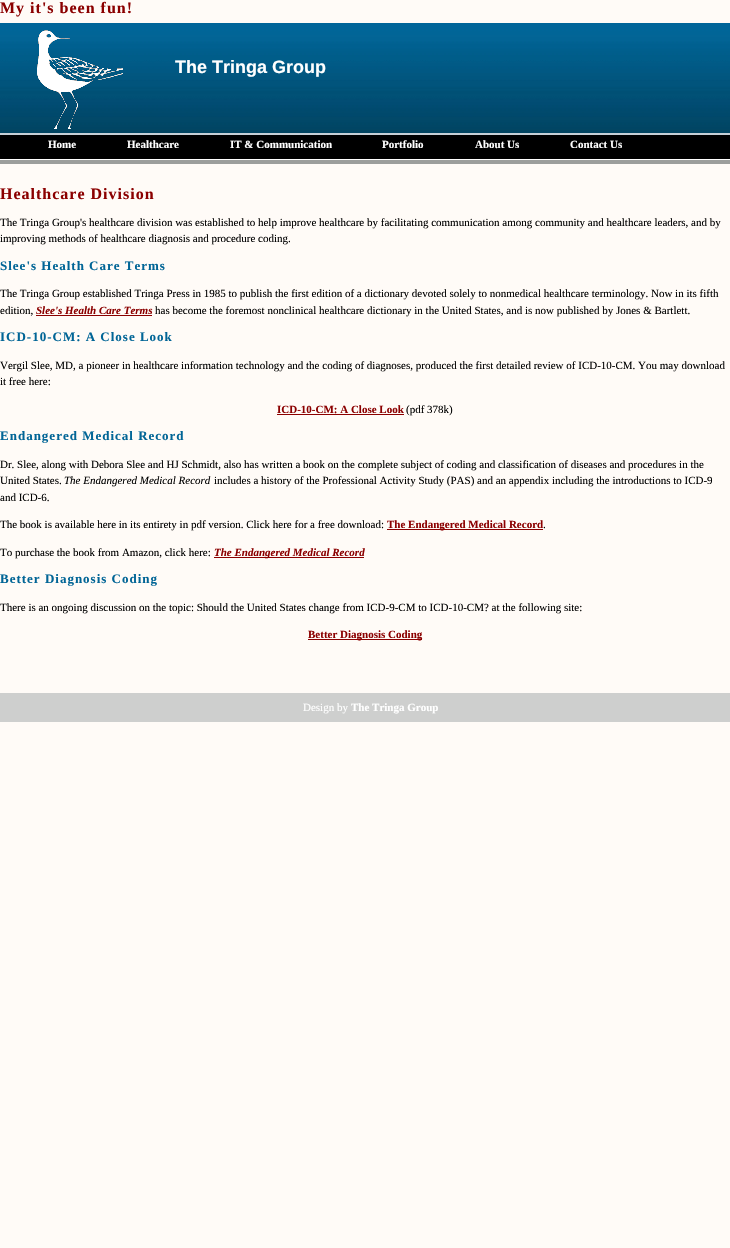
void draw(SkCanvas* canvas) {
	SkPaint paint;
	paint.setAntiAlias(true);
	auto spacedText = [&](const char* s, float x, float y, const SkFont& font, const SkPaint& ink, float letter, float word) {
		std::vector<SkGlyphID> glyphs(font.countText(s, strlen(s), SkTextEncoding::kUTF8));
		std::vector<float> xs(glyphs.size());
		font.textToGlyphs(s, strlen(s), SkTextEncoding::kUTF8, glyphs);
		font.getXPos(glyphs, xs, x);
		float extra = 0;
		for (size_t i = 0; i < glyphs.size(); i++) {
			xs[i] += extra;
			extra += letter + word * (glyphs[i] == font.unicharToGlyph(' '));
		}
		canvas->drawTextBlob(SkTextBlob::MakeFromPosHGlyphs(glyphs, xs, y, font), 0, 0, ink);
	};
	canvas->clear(0xfffffbf7);
	SkFont f1(fontMgr->matchFamilyStyle("Liberation Serif", SkFontStyle::Bold()), 16);
	f1.setSubpixel(true);
	paint.setColor(0xff8b0000);
	spacedText("My it's been fun!", 0, 13, f1, paint, 1, 0);
	canvas->drawImageRect(SkImages::DeferredFromEncodedData(SkData::MakeFromFileName("img1.png")), SkRect::MakeXYWH(0, 23, 730, 110), SkSamplingOptions());
	canvas->drawImageRect(SkImages::DeferredFromEncodedData(SkData::MakeFromFileName("img2.png")), SkRect::MakeXYWH(37, 30, 86, 99), SkSamplingOptions());
	SkFont f2(fontMgr->matchFamilyStyle("Liberation Sans", SkFontStyle::Bold()), 18);
	f2.setSubpixel(true);
	paint.setColor(0xffffffff);
	canvas->drawString("The Tringa Group", 175, 73, f2, paint);
	paint.setColor(0xff000000);
	canvas->drawRect(SkRect::MakeXYWH(0, 135, 730, 24), paint);
	paint.setColor(0xffc6cfd6);
	canvas->drawRect(SkRect::MakeXYWH(0, 133, 730, 2), paint);
	paint.setColor(0xffffffff);
	canvas->drawRect(SkRect::MakeXYWH(0, 159, 730, 1), paint);
	SkFont f3(fontMgr->matchFamilyStyle("Liberation Serif", SkFontStyle::Bold()), 11);
	f3.setSubpixel(true);
	canvas->drawString("Home", 48, 148, f3, paint);
	canvas->drawString("Healthcare", 127, 148, f3, paint);
	canvas->drawString("IT & Communication", 230, 148, f3, paint);
	canvas->drawString("Portfolio", 382, 148, f3, paint);
	canvas->drawString("About Us", 475, 148, f3, paint);
	canvas->drawString("Contact Us", 570, 148, f3, paint);
	paint.setColor(0xff9c9e9c);
	canvas->drawRect(SkRect::MakeXYWH(0, 160, 730, 4), paint);
	paint.setColor(0xff8b0000);
	spacedText("Healthcare Division", 0, 199, f1, paint, 1, 0);
	SkFont f4(fontMgr->matchFamilyStyle("Liberation Serif", SkFontStyle::Normal()), 11);
	f4.setSubpixel(true);
	paint.setColor(0xff000000);
	canvas->drawString("The Tringa Group's healthcare division was established to help improve healthcare by facilitating communication among community and healthcare leaders, and by", 0, 226, f4, paint);
	canvas->drawString("improving methods of healthcare diagnosis and procedure coding.", 0, 242, f4, paint);
	SkFont f5(fontMgr->matchFamilyStyle("Liberation Serif", SkFontStyle::Bold()), 13);
	f5.setSubpixel(true);
	paint.setColor(0xff016596);
	spacedText("Slee's Health Care Terms", 0, 270, f5, paint, 1, 0);
	paint.setColor(0xff000000);
	canvas->drawString("The Tringa Group established Tringa Press in 1985 to publish the first edition of a dictionary devoted solely to nonmedical healthcare terminology. Now in its fifth", 0, 297, f4, paint);
	canvas->drawString("edition,", 0, 314, f4, paint);
	SkFont f6(fontMgr->matchFamilyStyle("Liberation Serif", SkFontStyle::BoldItalic()), 11);
	f6.setSubpixel(true);
	paint.setColor(0xff8b0000);
	canvas->drawString("Slee's Health Care Terms", 36, 314, f6, paint);
	canvas->drawRect(SkRect::MakeXYWH(36, 315, 116, 1), paint);
	paint.setColor(0xff000000);
	canvas->drawString("has become the foremost nonclinical healthcare dictionary in the United States, and is now published by Jones & Bartlett.", 155, 314, f4, paint);
	paint.setColor(0xff016596);
	spacedText("ICD-10-CM: A Close Look", 0, 341, f5, paint, 1, 0);
	paint.setColor(0xff000000);
	canvas->drawString("Vergil Slee, MD, a pioneer in healthcare information technology and the coding of diagnoses, produced the first detailed review of ICD-10-CM. You may download", 0, 369, f4, paint);
	canvas->drawString("it free here:", 0, 385, f4, paint);
	paint.setColor(0xff8b0000);
	canvas->drawString("ICD-10-CM: A Close Look", 277, 413, f3, paint);
	canvas->drawRect(SkRect::MakeXYWH(277, 414, 127, 1), paint);
	paint.setColor(0xff000000);
	canvas->drawString("(pdf 378k)", 406, 413, f4, paint);
	paint.setColor(0xff016596);
	spacedText("Endangered Medical Record", 0, 440, f5, paint, 1, 0);
	paint.setColor(0xff000000);
	canvas->drawString("Dr. Slee, along with Debora Slee and HJ Schmidt, also has written a book on the complete subject of coding and classification of diseases and procedures in the", 0, 468, f4, paint);
	canvas->drawString("United States.", 0, 484, f4, paint);
	SkFont f7(fontMgr->matchFamilyStyle("Liberation Serif", SkFontStyle::Italic()), 11);
	f7.setSubpixel(true);
	canvas->drawString("The Endangered Medical Record", 64, 484, f7, paint);
	canvas->drawString("includes a history of the Professional Activity Study (PAS) and an appendix including the introductions to ICD-9", 214, 484, f4, paint);
	canvas->drawString("and ICD-6.", 0, 501, f4, paint);
	canvas->drawString("The book is available here in its entirety in pdf version. Click here for a free download:", 0, 528, f4, paint);
	paint.setColor(0xff8b0000);
	canvas->drawRect(SkRect::MakeXYWH(387, 529, 156, 1), paint);
	canvas->drawString("The Endangered Medical Record", 387, 528, f3, paint);
	paint.setColor(0xff000000);
	canvas->drawString(".", 543, 528, f4, paint);
	canvas->drawString("To purchase the book from Amazon, click here:", 0, 556, f4, paint);
	paint.setColor(0xff8b0000);
	canvas->drawRect(SkRect::MakeXYWH(214, 557, 150, 1), paint);
	canvas->drawString("The Endangered Medical Record", 214, 556, f6, paint);
	paint.setColor(0xff016596);
	spacedText("Better Diagnosis Coding", 0, 583, f5, paint, 1, 0);
	paint.setColor(0xff000000);
	canvas->drawString("There is an ongoing discussion on the topic: Should the United States change from ICD-9-CM to ICD-10-CM? at the following site:", 0, 611, f4, paint);
	paint.setColor(0xff8b0000);
	canvas->drawRect(SkRect::MakeXYWH(308, 639, 114, 1), paint);
	canvas->drawString("Better Diagnosis Coding", 308, 638, f3, paint);
	paint.setColor(0xffcecfce);
	canvas->drawRect(SkRect::MakeXYWH(0, 693, 730, 29), paint);
	paint.setColor(0xffffffff);
	canvas->drawString("Design by", 303, 711, f4, paint);
	canvas->drawString("The Tringa Group", 351, 711, f3, paint);
}
